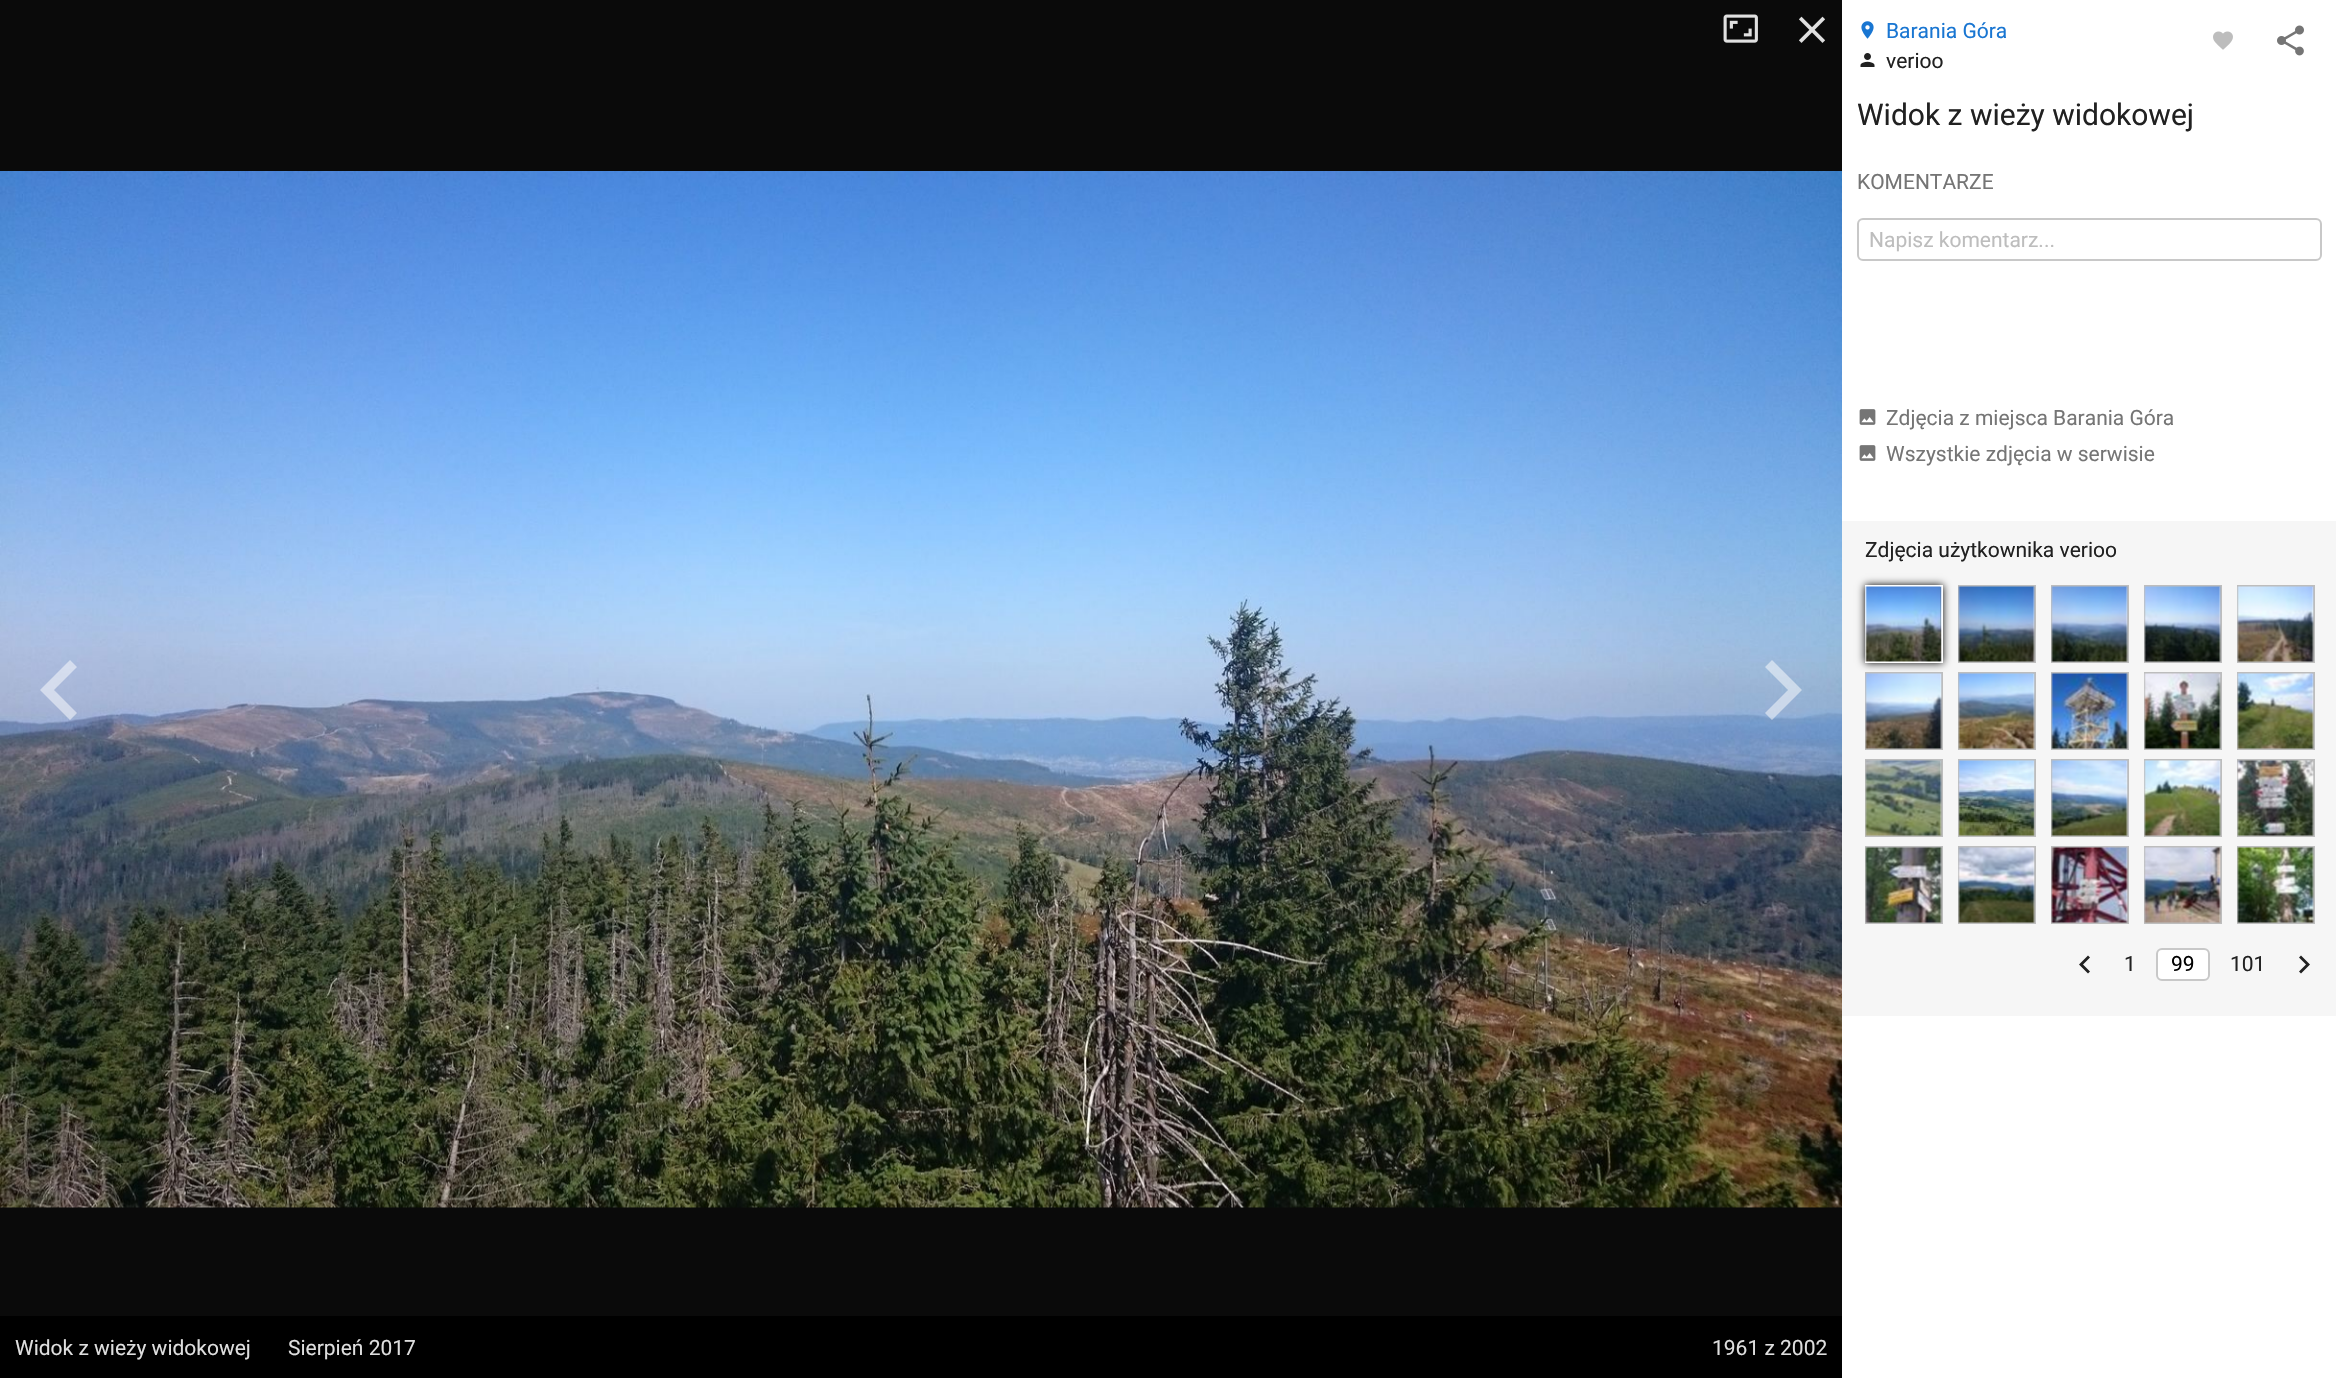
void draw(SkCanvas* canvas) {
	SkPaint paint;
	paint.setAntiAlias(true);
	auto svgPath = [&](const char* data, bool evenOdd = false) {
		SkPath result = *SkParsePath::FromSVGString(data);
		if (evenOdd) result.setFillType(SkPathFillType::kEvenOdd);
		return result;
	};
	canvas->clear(0xff0a0a0a);
	paint.setColor(0xffffffff);
	canvas->drawRect(SkRect::MakeXYWH(1842, 0, 494, 1378), paint);
	canvas->drawImageRect(SkImages::DeferredFromEncodedData(SkData::MakeFromFileName("img1.png")), SkRect::MakeXYWH(1861, 21, 13, 18), SkSamplingOptions());
	SkFont f1(fontMgr->matchFamilyStyle("Roboto", SkFontStyle::Normal()), 21);
	f1.setSubpixel(true);
	paint.setColor(0xff1976d2);
	canvas->drawString("Barania Góra", 1886, 38, f1, paint);
	canvas->drawImageRect(SkImages::DeferredFromEncodedData(SkData::MakeFromFileName("img2.png")), SkRect::MakeXYWH(1860, 53, 15, 14), SkSamplingOptions());
	paint.setColor(0xff212121);
	canvas->drawString("verioo", 1886, 68, f1, paint);
	canvas->drawImageRect(SkImages::DeferredFromEncodedData(SkData::MakeFromFileName("img3.png")), SkRect::MakeXYWH(2213, 31, 20, 19), SkSamplingOptions());
	canvas->drawImageRect(SkImages::DeferredFromEncodedData(SkData::MakeFromFileName("img4.png")), SkRect::MakeXYWH(2277, 25, 27, 31), SkSamplingOptions());
	SkFont f2(fontMgr->matchFamilyStyle("Roboto", SkFontStyle::Normal()), 30);
	f2.setSubpixel(true);
	canvas->drawString("Widok z wieży widokowej", 1857, 125, f2, paint);
	paint.setColor(0xff757575);
	canvas->drawString("KOMENTARZE", 1857, 189, f1, paint);
	paint.setStroke(true);
	paint.setStrokeWidth(2);
	paint.setColor(0xffc8c8c8);
	canvas->drawRoundRect(SkRect::MakeXYWH(1858, 219, 463, 41), 5, 5, paint);
	paint.setStroke(false);
	paint.setColor(0xffbdbdbd);
	canvas->drawString("Napisz komentarz...", 1869, 247, f1, paint);
	canvas->drawImageRect(SkImages::DeferredFromEncodedData(SkData::MakeFromFileName("img5.png")), SkRect::MakeXYWH(1859, 409, 17, 16), SkSamplingOptions());
	paint.setColor(0xff757575);
	canvas->drawString("Zdjęcia z miejsca Barania Góra", 1886, 425, f1, paint);
	canvas->drawImageRect(SkImages::DeferredFromEncodedData(SkData::MakeFromFileName("img5.png")), SkRect::MakeXYWH(1859, 445, 17, 16), SkSamplingOptions());
	canvas->drawString("Wszystkie zdjęcia w serwisie", 1886, 461, f1, paint);
	paint.setColor(0xfff6f6f6);
	canvas->drawRect(SkRect::MakeXYWH(1842, 521, 494, 495), paint);
	paint.setColor(0xff212121);
	canvas->drawString("Zdjęcia użytkownika verioo", 1865, 557, f1, paint);
	paint.setColor(0xff000000);
	paint.setMaskFilter(SkMaskFilter::MakeBlur(kNormal_SkBlurStyle, 4));
	canvas->drawRect(SkRect::MakeXYWH(1865, 585, 78, 78), paint);
	paint.setMaskFilter(nullptr);
	paint.setStroke(true);
	paint.setColor(0xffffffff);
	canvas->drawRect(SkRect::MakeXYWH(1866, 586, 76, 76), paint);
	canvas->drawImageRect(SkImages::DeferredFromEncodedData(SkData::MakeFromFileName("img6.png")), SkRect::MakeXYWH(1865, 586, 77, 76), SkSamplingOptions());
	paint.setColor(0xffbdbdbd);
	canvas->drawRect(SkRect::MakeXYWH(1959, 586, 76, 76), paint);
	canvas->drawImageRect(SkImages::DeferredFromEncodedData(SkData::MakeFromFileName("img7.png")), SkRect::MakeXYWH(1958, 586, 77, 76), SkSamplingOptions());
	canvas->drawRect(SkRect::MakeXYWH(2052, 586, 76, 76), paint);
	canvas->drawImageRect(SkImages::DeferredFromEncodedData(SkData::MakeFromFileName("img8.png")), SkRect::MakeXYWH(2051, 586, 77, 76), SkSamplingOptions());
	canvas->drawRect(SkRect::MakeXYWH(2145, 586, 76, 76), paint);
	canvas->drawImageRect(SkImages::DeferredFromEncodedData(SkData::MakeFromFileName("img9.png")), SkRect::MakeXYWH(2144, 586, 77, 76), SkSamplingOptions());
	canvas->drawRect(SkRect::MakeXYWH(2238, 586, 76, 76), paint);
	canvas->drawImageRect(SkImages::DeferredFromEncodedData(SkData::MakeFromFileName("img10.png")), SkRect::MakeXYWH(2237, 586, 77, 76), SkSamplingOptions());
	canvas->drawRect(SkRect::MakeXYWH(1866, 673, 76, 76), paint);
	canvas->drawImageRect(SkImages::DeferredFromEncodedData(SkData::MakeFromFileName("img11.png")), SkRect::MakeXYWH(1865, 673, 77, 76), SkSamplingOptions());
	canvas->drawRect(SkRect::MakeXYWH(1959, 673, 76, 76), paint);
	canvas->drawImageRect(SkImages::DeferredFromEncodedData(SkData::MakeFromFileName("img12.png")), SkRect::MakeXYWH(1958, 673, 77, 76), SkSamplingOptions());
	canvas->drawRect(SkRect::MakeXYWH(2052, 673, 76, 76), paint);
	canvas->drawImageRect(SkImages::DeferredFromEncodedData(SkData::MakeFromFileName("img13.png")), SkRect::MakeXYWH(2051, 673, 77, 76), SkSamplingOptions());
	canvas->drawRect(SkRect::MakeXYWH(2145, 673, 76, 76), paint);
	canvas->drawImageRect(SkImages::DeferredFromEncodedData(SkData::MakeFromFileName("img14.png")), SkRect::MakeXYWH(2144, 673, 77, 76), SkSamplingOptions());
	canvas->drawRect(SkRect::MakeXYWH(2238, 673, 76, 76), paint);
	canvas->drawImageRect(SkImages::DeferredFromEncodedData(SkData::MakeFromFileName("img15.png")), SkRect::MakeXYWH(2237, 673, 77, 76), SkSamplingOptions());
	canvas->drawRect(SkRect::MakeXYWH(1866, 760, 76, 76), paint);
	canvas->drawImageRect(SkImages::DeferredFromEncodedData(SkData::MakeFromFileName("img16.png")), SkRect::MakeXYWH(1865, 760, 77, 76), SkSamplingOptions());
	canvas->drawRect(SkRect::MakeXYWH(1959, 760, 76, 76), paint);
	canvas->drawImageRect(SkImages::DeferredFromEncodedData(SkData::MakeFromFileName("img17.png")), SkRect::MakeXYWH(1958, 760, 77, 76), SkSamplingOptions());
	canvas->drawRect(SkRect::MakeXYWH(2052, 760, 76, 76), paint);
	canvas->drawImageRect(SkImages::DeferredFromEncodedData(SkData::MakeFromFileName("img18.png")), SkRect::MakeXYWH(2051, 760, 77, 76), SkSamplingOptions());
	canvas->drawRect(SkRect::MakeXYWH(2145, 760, 76, 76), paint);
	canvas->drawImageRect(SkImages::DeferredFromEncodedData(SkData::MakeFromFileName("img19.png")), SkRect::MakeXYWH(2144, 760, 77, 76), SkSamplingOptions());
	canvas->drawRect(SkRect::MakeXYWH(2238, 760, 76, 76), paint);
	canvas->drawImageRect(SkImages::DeferredFromEncodedData(SkData::MakeFromFileName("img20.png")), SkRect::MakeXYWH(2237, 760, 77, 76), SkSamplingOptions());
	canvas->drawRect(SkRect::MakeXYWH(1866, 847, 76, 76), paint);
	canvas->drawImageRect(SkImages::DeferredFromEncodedData(SkData::MakeFromFileName("img21.png")), SkRect::MakeXYWH(1865, 847, 77, 76), SkSamplingOptions());
	canvas->drawRect(SkRect::MakeXYWH(1959, 847, 76, 76), paint);
	canvas->drawImageRect(SkImages::DeferredFromEncodedData(SkData::MakeFromFileName("img22.png")), SkRect::MakeXYWH(1958, 847, 77, 76), SkSamplingOptions());
	canvas->drawRect(SkRect::MakeXYWH(2052, 847, 76, 76), paint);
	canvas->drawImageRect(SkImages::DeferredFromEncodedData(SkData::MakeFromFileName("img23.png")), SkRect::MakeXYWH(2051, 847, 77, 76), SkSamplingOptions());
	canvas->drawRect(SkRect::MakeXYWH(2145, 847, 76, 76), paint);
	canvas->drawImageRect(SkImages::DeferredFromEncodedData(SkData::MakeFromFileName("img24.png")), SkRect::MakeXYWH(2144, 847, 77, 76), SkSamplingOptions());
	canvas->drawRect(SkRect::MakeXYWH(2238, 847, 76, 76), paint);
	canvas->drawImageRect(SkImages::DeferredFromEncodedData(SkData::MakeFromFileName("img25.png")), SkRect::MakeXYWH(2237, 847, 77, 76), SkSamplingOptions());
	paint.setStroke(false);
	paint.setColor(0xff212121);
	canvas->drawPath(svgPath("M2090 971.5L2088 973.5L2079 964.5L2088 955.5L2090 957.5L2083 964.5Z"), paint);
	canvas->drawString("1", 2124, 971, f1, paint);
	paint.setColor(0xffffffff);
	canvas->drawRoundRect(SkRect::MakeXYWH(2157, 949, 52, 31), 5, 5, paint);
	paint.setStroke(true);
	paint.setColor(0xffc8c8c8);
	canvas->drawRoundRect(SkRect::MakeXYWH(2157, 949, 52, 31), 5, 5, paint);
	paint.setStroke(false);
	paint.setColor(0xff000000);
	canvas->drawString("99", 2171, 971, f1, paint);
	paint.setColor(0xff212121);
	canvas->drawString("101", 2230, 971, f1, paint);
	canvas->drawPath(svgPath("M2299 971.5L2306 964.5L2299 957.5L2301 955.5L2310 964.5L2301 973.5Z"), paint);
	canvas->drawImageRect(SkImages::DeferredFromEncodedData(SkData::MakeFromFileName("img26.png")), SkRect::MakeXYWH(1723, 14, 35, 29), SkSamplingOptions());
	canvas->drawImageRect(SkImages::DeferredFromEncodedData(SkData::MakeFromFileName("img27.png")), SkRect::MakeXYWH(1799, 16, 26, 27), SkSamplingOptions());
	canvas->drawImageRect(SkImages::DeferredFromEncodedData(SkData::MakeFromFileName("img28.png")), SkRect::MakeXYWH(0, 171, 1842, 1037), SkSamplingOptions());
	paint.setColor(0x80ffffff);
	canvas->drawPath(svgPath("M77 667L70 660L40 690L70 720L77 713L54 690Z"), paint);
	canvas->drawPath(svgPath("M1772 660L1765 667L1788 690L1765 713L1772 720L1802 690Z"), paint);
	paint.setColor(0xff000000);
	canvas->drawRect(SkRect::MakeXYWH(0, 1316, 1842, 62), paint);
	paint.setColor(0xffdedede);
	canvas->drawString("Widok z wieży widokowej", 15, 1355, f1, paint);
	canvas->drawString("Sierpień 2017", 288, 1355, f1, paint);
	canvas->drawString("1961 z 2002", 1712, 1355, f1, paint);
}
